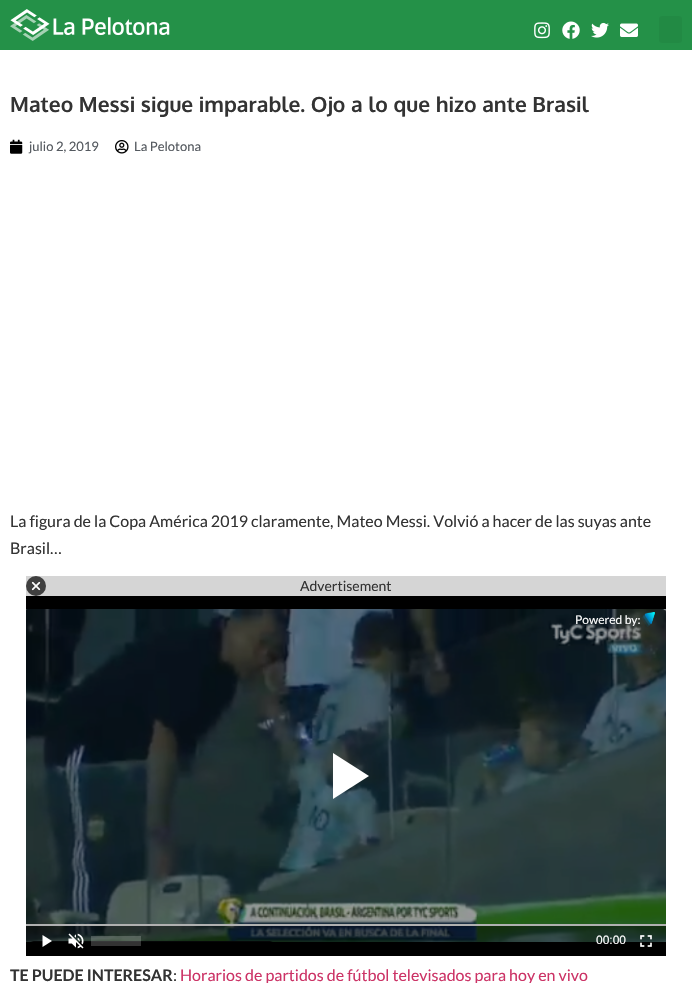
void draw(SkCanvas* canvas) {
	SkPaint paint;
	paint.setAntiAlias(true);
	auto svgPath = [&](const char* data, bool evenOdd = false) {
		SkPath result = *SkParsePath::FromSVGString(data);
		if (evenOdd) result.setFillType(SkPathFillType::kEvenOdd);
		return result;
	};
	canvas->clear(0xffffffff);
	paint.setColor(0xff249148);
	canvas->drawRect(SkRect::MakeXYWH(0, 0, 692, 50), paint);
	canvas->drawImageRect(SkImages::DeferredFromEncodedData(SkData::MakeFromFileName("img1.png")), SkRect::MakeXYWH(10, 9, 160, 32), SkSamplingOptions());
	canvas->drawImageRect(SkImages::DeferredFromEncodedData(SkData::MakeFromFileName("img2.png")), SkRect::MakeXYWH(534, 22, 16, 17), SkSamplingOptions());
	canvas->drawImageRect(SkImages::DeferredFromEncodedData(SkData::MakeFromFileName("img3.png")), SkRect::MakeXYWH(562, 21, 18, 18), SkSamplingOptions());
	canvas->drawImageRect(SkImages::DeferredFromEncodedData(SkData::MakeFromFileName("img4.png")), SkRect::MakeXYWH(591, 22, 18, 16), SkSamplingOptions());
	canvas->drawImageRect(SkImages::DeferredFromEncodedData(SkData::MakeFromFileName("img5.png")), SkRect::MakeXYWH(620, 23, 18, 14), SkSamplingOptions());
	paint.setColor(0xff228a44);
	canvas->drawRoundRect(SkRect::MakeXYWH(659, 16, 23, 27), 3, 3, paint);
	SkFont f1(fontMgr->matchFamilyStyle("Oxygen", SkFontStyle::Bold()), 21);
	f1.setSubpixel(true);
	paint.setColor(0xff333333);
	canvas->drawString("Mateo Messi sigue imparable. Ojo a lo que hizo ante Brasil", 10, 112, f1, paint);
	canvas->drawImageRect(SkImages::DeferredFromEncodedData(SkData::MakeFromFileName("img6.png")), SkRect::MakeXYWH(10, 139, 13, 15), SkSamplingOptions());
	SkFont f2(fontMgr->matchFamilyStyle("Lato", SkFontStyle::Normal()), 13);
	f2.setSubpixel(true);
	paint.setColor(0xff54595f);
	canvas->drawString("julio 2, 2019", 29, 151, f2, paint);
	canvas->drawImageRect(SkImages::DeferredFromEncodedData(SkData::MakeFromFileName("img7.png")), SkRect::MakeXYWH(115, 140, 14, 14), SkSamplingOptions());
	canvas->drawString("La Pelotona", 134, 151, f2, paint);
	SkFont f3(fontMgr->matchFamilyStyle("Lato", SkFontStyle::Normal()), 16);
	f3.setSubpixel(true);
	paint.setColor(0xff333333);
	canvas->drawString("La figura de la Copa América 2019 claramente, Mateo Messi. Volvió a hacer de las suyas ante", 10, 527, f3, paint);
	canvas->drawString("Brasil…", 10, 554, f3, paint);
	paint.setColor(0xffd5d5d5);
	canvas->drawRect(SkRect::MakeXYWH(26, 576, 640, 20), paint);
	paint.setColor(0xff404040);
	canvas->drawCircle(36, 586, 10, paint);
	canvas->drawImageRect(SkImages::DeferredFromEncodedData(SkData::MakeFromFileName("img8.png")), SkRect::MakeXYWH(31, 581, 10, 10), SkSamplingOptions());
	SkFont f4(fontMgr->matchFamilyStyle("Lato", SkFontStyle::Normal()), 14);
	f4.setSubpixel(true);
	paint.setColor(0xff333333);
	canvas->drawString("Advertisement", 300, 591, f4, paint);
	paint.setColor(0xff000000);
	canvas->drawRect(SkRect::MakeXYWH(26, 596, 640, 360), paint);
	canvas->drawImageRect(SkImages::DeferredFromEncodedData(SkData::MakeFromFileName("img9.png")), SkRect::MakeXYWH(26, 609, 640, 333), SkSamplingOptions());
	SkFont f5(fontMgr->matchFamilyStyle("Lato", SkFontStyle::Normal()), 12);
	f5.setSubpixel(true);
	paint.setColor(0xffffffff);
	canvas->drawString("Powered by:", 575, 624, f5, paint);
	canvas->drawImageRect(SkImages::DeferredFromEncodedData(SkData::MakeFromFileName("img10.png")), SkRect::MakeXYWH(641, 612, 14, 15), SkSamplingOptions());
	canvas->drawPath(svgPath("M333 753V799L369 776Z"), paint);
	paint.setColor(0xffb0b0b0);
	canvas->drawRect(SkRect::MakeXYWH(26, 924, 640, 2), paint);
	paint.setColor(0x80000000);
	canvas->drawRect(SkRect::MakeXYWH(26, 926, 640, 16), paint);
	paint.setColor(0xffffffff);
	canvas->drawPath(svgPath("M42.5 935V947L52 941Z"), paint);
	canvas->drawImageRect(SkImages::DeferredFromEncodedData(SkData::MakeFromFileName("img11.png")), SkRect::MakeXYWH(68, 933, 16, 16), SkSamplingOptions());
	paint.setColor(0x33ffffff);
	canvas->drawRect(SkRect::MakeXYWH(91, 936, 50, 10), paint);
	SkFont f6(fontMgr->matchFamilyStyle("Liberation Sans", SkFontStyle::Normal()), 12);
	f6.setSubpixel(true);
	paint.setColor(0xffffffff);
	canvas->drawString("00:00", 596, 944, f6, paint);
	canvas->drawImageRect(SkImages::DeferredFromEncodedData(SkData::MakeFromFileName("img12.png")), SkRect::MakeXYWH(640, 935, 12, 12), SkSamplingOptions());
	SkFont f7(fontMgr->matchFamilyStyle("Lato", SkFontStyle::Bold()), 16);
	f7.setSubpixel(true);
	paint.setColor(0xff333333);
	canvas->drawString("TE PUEDE INTERESAR", 10, 981, f7, paint);
	canvas->drawString(":", 173, 981, f3, paint);
	paint.setColor(0xffcc3366);
	canvas->drawString("Horarios de partidos de fútbol televisados para hoy en vivo", 180, 981, f3, paint);
}
